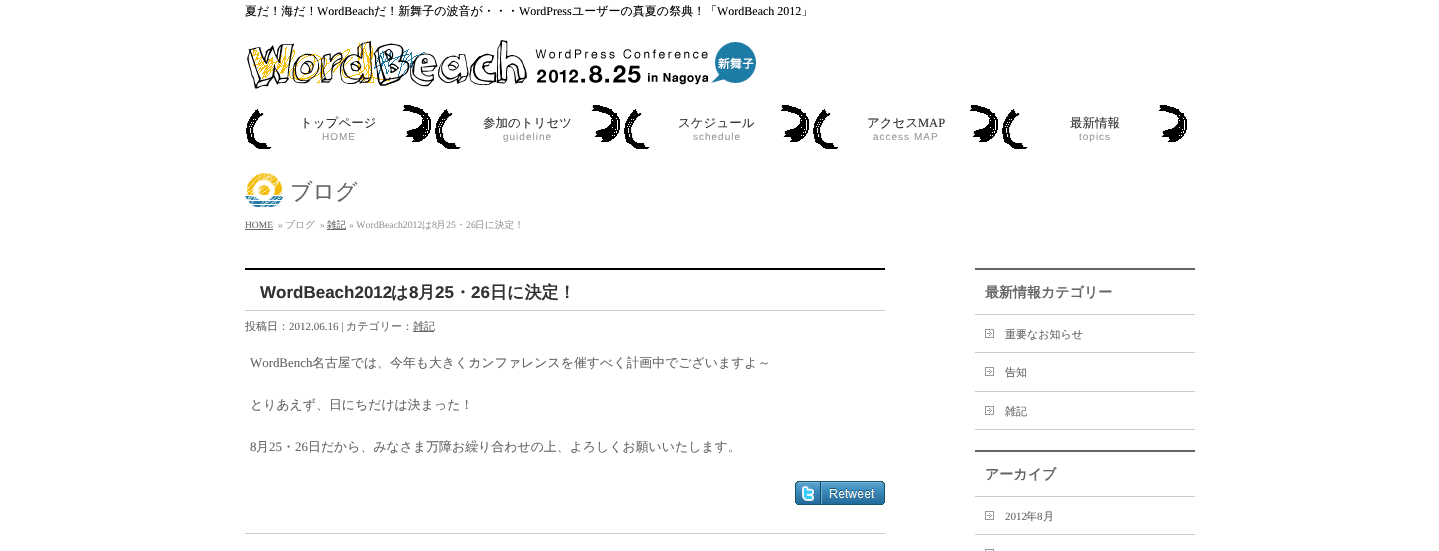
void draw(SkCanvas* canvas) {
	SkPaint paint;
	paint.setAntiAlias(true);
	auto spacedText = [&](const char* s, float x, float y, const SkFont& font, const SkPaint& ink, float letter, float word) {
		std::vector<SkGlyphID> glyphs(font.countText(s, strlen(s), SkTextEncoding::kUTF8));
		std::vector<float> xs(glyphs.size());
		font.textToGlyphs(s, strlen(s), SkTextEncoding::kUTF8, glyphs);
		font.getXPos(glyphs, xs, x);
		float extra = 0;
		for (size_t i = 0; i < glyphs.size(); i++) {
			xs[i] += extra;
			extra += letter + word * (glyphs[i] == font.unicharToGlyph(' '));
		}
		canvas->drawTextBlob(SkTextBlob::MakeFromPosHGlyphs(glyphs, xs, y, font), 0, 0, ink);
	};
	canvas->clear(0xffffffff);
	SkFont f1(fontMgr->matchFamilyStyle("WenQuanYi Zen Hei", SkFontStyle(500, SkFontStyle::kNormal_Width, SkFontStyle::kUpright_Slant)), 12);
	f1.setSubpixel(true);
	paint.setColor(0xff000000);
	canvas->drawString("夏だ！海だ！", 245, 15, f1, paint);
	SkFont f2(fontMgr->matchFamilyStyle("Liberation Serif", SkFontStyle::Normal()), 12);
	f2.setSubpixel(true);
	canvas->drawString("WordBeach", 317, 15, f2, paint);
	canvas->drawString("だ！新舞子の波音が・・・", 374, 15, f1, paint);
	canvas->drawString("WordPress", 519, 15, f2, paint);
	canvas->drawString("ユーザーの真夏の祭典！「", 572, 15, f1, paint);
	canvas->drawString("WordBeach 2012", 717, 15, f2, paint);
	canvas->drawString("」", 801, 15, f1, paint);
	canvas->drawImageRect(SkImages::DeferredFromEncodedData(SkData::MakeFromFileName("img1.png")), SkRect::MakeXYWH(245, 40, 511, 50), SkSamplingOptions());
	canvas->drawImageRect(SkImages::DeferredFromEncodedData(SkData::MakeFromFileName("img2.png")), SkRect::MakeXYWH(246, 105, 185, 44), SkSamplingOptions());
	SkFont f3(fontMgr->matchFamilyStyle("WenQuanYi Zen Hei", SkFontStyle(500, SkFontStyle::kNormal_Width, SkFontStyle::kUpright_Slant)), 12.5);
	f3.setSubpixel(true);
	paint.setColor(0xff333333);
	canvas->drawString("トップページ", 300, 127, f3, paint);
	SkFont f4(fontMgr->matchFamilyStyle("Liberation Sans", SkFontStyle::Normal()), 10);
	f4.setSubpixel(true);
	paint.setColor(0xff999999);
	spacedText("HOME", 322, 140, f4, paint, 1, 0);
	canvas->drawImageRect(SkImages::DeferredFromEncodedData(SkData::MakeFromFileName("img2.png")), SkRect::MakeXYWH(435, 105, 185, 44), SkSamplingOptions());
	paint.setColor(0xff333333);
	canvas->drawString("参加のトリセツ", 483, 127, f3, paint);
	paint.setColor(0xff999999);
	spacedText("guideline", 503, 140, f4, paint, 1, 0);
	canvas->drawImageRect(SkImages::DeferredFromEncodedData(SkData::MakeFromFileName("img2.png")), SkRect::MakeXYWH(624, 105, 185, 44), SkSamplingOptions());
	paint.setColor(0xff333333);
	canvas->drawString("スケジュール", 678, 127, f3, paint);
	paint.setColor(0xff999999);
	spacedText("schedule", 693, 140, f4, paint, 1, 0);
	canvas->drawImageRect(SkImages::DeferredFromEncodedData(SkData::MakeFromFileName("img2.png")), SkRect::MakeXYWH(813, 105, 185, 44), SkSamplingOptions());
	paint.setColor(0xff333333);
	canvas->drawString("アクセス", 867, 127, f3, paint);
	SkFont f5(fontMgr->matchFamilyStyle("Liberation Serif", SkFontStyle::Normal()), 12.5);
	f5.setSubpixel(true);
	canvas->drawString("MAP", 918, 127, f5, paint);
	paint.setColor(0xff999999);
	spacedText("access MAP", 873, 140, f4, paint, 1, 0);
	canvas->drawImageRect(SkImages::DeferredFromEncodedData(SkData::MakeFromFileName("img2.png")), SkRect::MakeXYWH(1002, 105, 185, 44), SkSamplingOptions());
	paint.setColor(0xff333333);
	canvas->drawString("最新情報", 1070, 127, f3, paint);
	paint.setColor(0xff999999);
	spacedText("topics", 1079, 140, f4, paint, 1, 0);
	canvas->drawImageRect(SkImages::DeferredFromEncodedData(SkData::MakeFromFileName("img3.png")), SkRect::MakeXYWH(245, 173, 39, 34), SkSamplingOptions());
	SkFont f6(fontMgr->matchFamilyStyle("WenQuanYi Zen Hei", SkFontStyle(500, SkFontStyle::kNormal_Width, SkFontStyle::kUpright_Slant)), 22);
	f6.setSubpixel(true);
	paint.setColor(0xff666666);
	canvas->drawString("ブログ", 290, 199, f6, paint);
	SkFont f7(fontMgr->matchFamilyStyle("Liberation Serif", SkFontStyle::Normal()), 9.5);
	f7.setSubpixel(true);
	canvas->drawString("HOME", 245, 228, f7, paint);
	canvas->drawRect(SkRect::MakeXYWH(245, 229, 28, 1), paint);
	SkFont f8(fontMgr->matchFamilyStyle("Liberation Serif", SkFontStyle::Normal()), 9.75);
	f8.setSubpixel(true);
	paint.setColor(0xff999999);
	canvas->drawString("»", 278, 228, f8, paint);
	SkFont f9(fontMgr->matchFamilyStyle("WenQuanYi Zen Hei", SkFontStyle(500, SkFontStyle::kNormal_Width, SkFontStyle::kUpright_Slant)), 9.75);
	f9.setSubpixel(true);
	canvas->drawString("ブログ", 285, 228, f9, paint);
	canvas->drawString("»", 320, 228, f8, paint);
	paint.setColor(0xff666666);
	canvas->drawRect(SkRect::MakeXYWH(327, 229, 19, 1), paint);
	SkFont f10(fontMgr->matchFamilyStyle("WenQuanYi Zen Hei", SkFontStyle(500, SkFontStyle::kNormal_Width, SkFontStyle::kUpright_Slant)), 9.5);
	f10.setSubpixel(true);
	canvas->drawString("雑記", 327, 228, f10, paint);
	paint.setColor(0xff999999);
	canvas->drawString("» WordBeach2012", 349, 228, f8, paint);
	canvas->drawString("は", 422, 228, f9, paint);
	canvas->drawString("8", 432, 228, f8, paint);
	canvas->drawString("月", 436, 228, f9, paint);
	canvas->drawString("25", 446, 228, f8, paint);
	canvas->drawString("・", 456, 228, f9, paint);
	canvas->drawString("26", 466, 228, f8, paint);
	canvas->drawString("日に決定！", 475, 228, f9, paint);
	paint.setColor(0xff000000);
	canvas->drawRect(SkRect::MakeXYWH(245, 268, 640, 2), paint);
	paint.setColor(0xffcccccc);
	canvas->drawRect(SkRect::MakeXYWH(245, 310, 640, 1), paint);
	SkFont f11(fontMgr->matchFamilyStyle("Liberation Sans", SkFontStyle::Bold()), 17);
	f11.setSubpixel(true);
	paint.setColor(0xff333333);
	canvas->drawString("WordBeach2012", 260, 298, f11, paint);
	SkFont f12(fontMgr->matchFamilyStyle("WenQuanYi Zen Hei", SkFontStyle::Bold()), 17);
	f12.setSubpixel(true);
	canvas->drawString("は", 391, 298, f12, paint);
	canvas->drawString("8", 409, 298, f11, paint);
	canvas->drawString("月", 418, 298, f12, paint);
	canvas->drawString("25", 435, 298, f11, paint);
	canvas->drawString("・", 454, 298, f12, paint);
	canvas->drawString("26", 471, 298, f11, paint);
	canvas->drawString("日に決定！", 490, 298, f12, paint);
	SkFont f13(fontMgr->matchFamilyStyle("WenQuanYi Zen Hei", SkFontStyle(500, SkFontStyle::kNormal_Width, SkFontStyle::kUpright_Slant)), 11);
	f13.setSubpixel(true);
	paint.setColor(0xff666666);
	canvas->drawString("投稿日：", 245, 330, f13, paint);
	SkFont f14(fontMgr->matchFamilyStyle("Liberation Serif", SkFontStyle::Normal()), 11);
	f14.setSubpixel(true);
	canvas->drawString("2012.06.16 |", 289, 330, f14, paint);
	canvas->drawString("カテゴリー：", 346, 330, f13, paint);
	canvas->drawRect(SkRect::MakeXYWH(413, 331, 21, 1), paint);
	canvas->drawString("雑記", 413, 330, f13, paint);
	SkFont f15(fontMgr->matchFamilyStyle("Liberation Serif", SkFontStyle::Normal()), 12.9);
	f15.setSubpixel(true);
	canvas->drawString("WordBench", 250, 367, f15, paint);
	SkFont f16(fontMgr->matchFamilyStyle("WenQuanYi Zen Hei", SkFontStyle(500, SkFontStyle::kNormal_Width, SkFontStyle::kUpright_Slant)), 12.9);
	f16.setSubpixel(true);
	canvas->drawString("名古屋では、今年も大きくカンファレンスを催すべく計画中でございますよ～", 312, 367, f16, paint);
	canvas->drawString("とりあえず、日にちだけは決まった！", 250, 409, f16, paint);
	canvas->drawString("8", 250, 451, f15, paint);
	canvas->drawString("月", 256, 451, f16, paint);
	canvas->drawString("25", 269, 451, f15, paint);
	canvas->drawString("・", 282, 451, f16, paint);
	canvas->drawString("26", 295, 451, f15, paint);
	canvas->drawString("日だから、みなさま万障お繰り合わせの上、よろしくお願いいたします。", 308, 451, f16, paint);
	canvas->drawImageRect(SkImages::DeferredFromEncodedData(SkData::MakeFromFileName("img4.png")), SkRect::MakeXYWH(795, 481, 90, 24), SkSamplingOptions());
	paint.setColor(0xffcccccc);
	canvas->drawRect(SkRect::MakeXYWH(245, 533, 640, 1), paint);
	paint.setColor(0xff666666);
	canvas->drawRect(SkRect::MakeXYWH(975, 268, 220, 2), paint);
	paint.setColor(0xffcccccc);
	canvas->drawRect(SkRect::MakeXYWH(975, 314, 220, 1), paint);
	SkFont f17(fontMgr->matchFamilyStyle("WenQuanYi Zen Hei", SkFontStyle::Bold()), 14);
	f17.setSubpixel(true);
	paint.setColor(0xff666666);
	canvas->drawString("最新情報カテゴリー", 985, 297, f17, paint);
	paint.setColor(0xffcccccc);
	canvas->drawRect(SkRect::MakeXYWH(975, 352, 220, 1), paint);
	canvas->drawImageRect(SkImages::DeferredFromEncodedData(SkData::MakeFromFileName("img5.png")), SkRect::MakeXYWH(985, 329, 9, 9), SkSamplingOptions());
	paint.setColor(0xff666666);
	canvas->drawString("重要なお知らせ", 1005, 338, f13, paint);
	paint.setColor(0xffcccccc);
	canvas->drawRect(SkRect::MakeXYWH(975, 391, 220, 1), paint);
	canvas->drawImageRect(SkImages::DeferredFromEncodedData(SkData::MakeFromFileName("img5.png")), SkRect::MakeXYWH(985, 367, 9, 9), SkSamplingOptions());
	paint.setColor(0xff666666);
	canvas->drawString("告知", 1005, 376, f13, paint);
	paint.setColor(0xffcccccc);
	canvas->drawRect(SkRect::MakeXYWH(975, 429, 220, 1), paint);
	canvas->drawImageRect(SkImages::DeferredFromEncodedData(SkData::MakeFromFileName("img5.png")), SkRect::MakeXYWH(985, 406, 9, 9), SkSamplingOptions());
	paint.setColor(0xff666666);
	canvas->drawString("雑記", 1005, 415, f13, paint);
	canvas->drawRect(SkRect::MakeXYWH(975, 450, 220, 2), paint);
	paint.setColor(0xffcccccc);
	canvas->drawRect(SkRect::MakeXYWH(975, 496, 220, 1), paint);
	paint.setColor(0xff666666);
	canvas->drawString("アーカイブ", 985, 479, f17, paint);
	paint.setColor(0xffcccccc);
	canvas->drawRect(SkRect::MakeXYWH(975, 534, 220, 1), paint);
	canvas->drawImageRect(SkImages::DeferredFromEncodedData(SkData::MakeFromFileName("img5.png")), SkRect::MakeXYWH(985, 511, 9, 9), SkSamplingOptions());
	paint.setColor(0xff666666);
	canvas->drawString("2012", 1005, 520, f14, paint);
	canvas->drawString("年", 1026, 520, f13, paint);
	canvas->drawString("8", 1037, 520, f14, paint);
	canvas->drawString("月", 1043, 520, f13, paint);
	canvas->drawImageRect(SkImages::DeferredFromEncodedData(SkData::MakeFromFileName("img6.png")), SkRect::MakeXYWH(985, 549, 9, 2), SkSamplingOptions());
}
